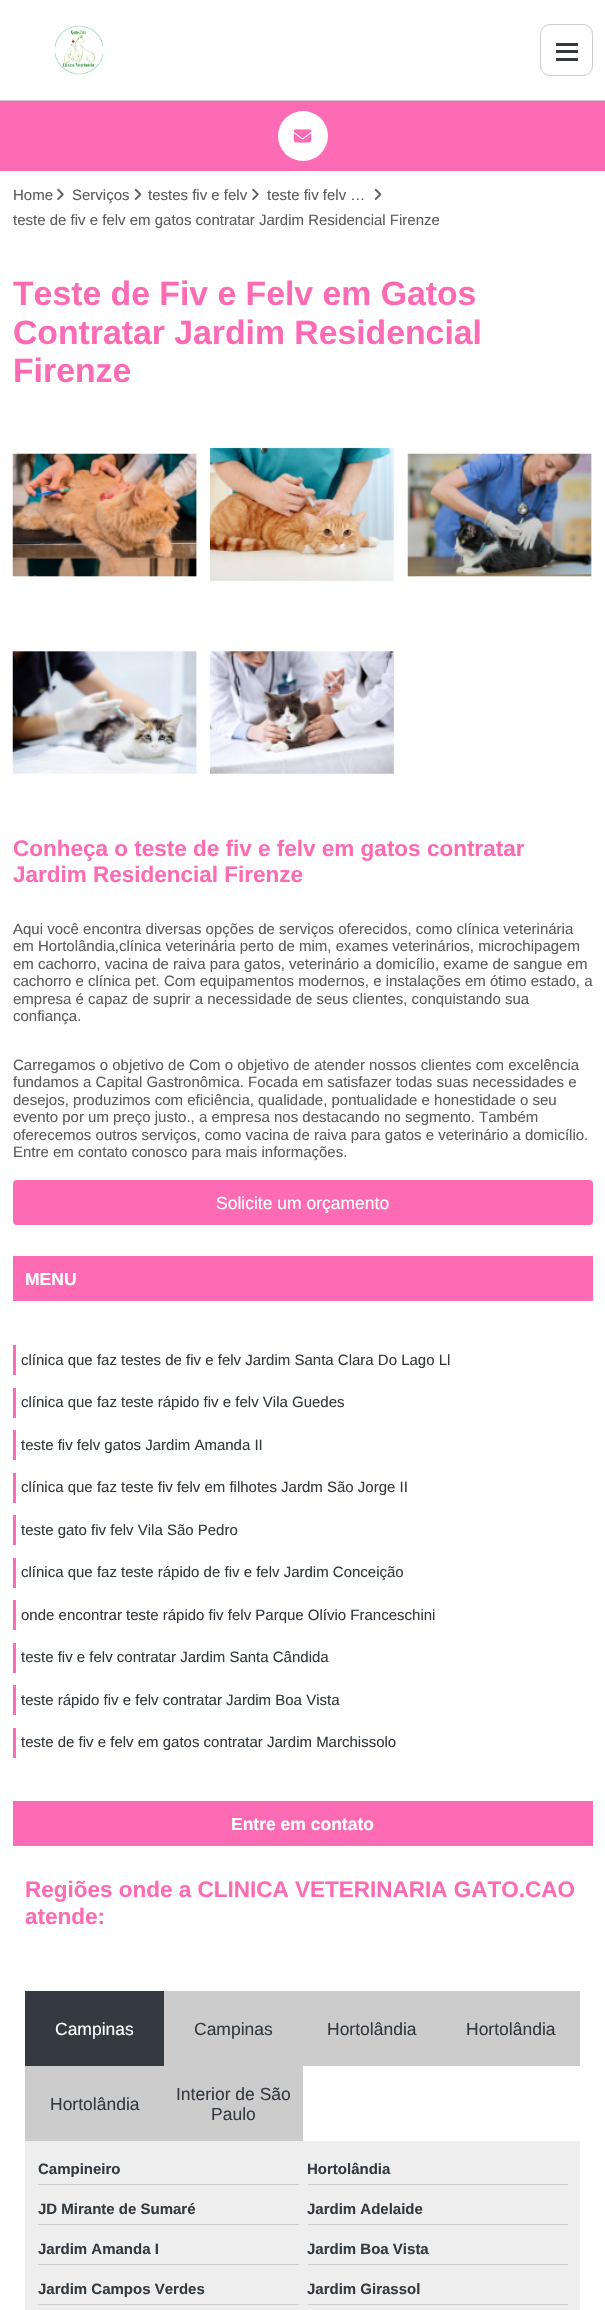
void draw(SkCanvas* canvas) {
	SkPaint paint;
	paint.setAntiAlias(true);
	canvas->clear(0xffffffff);
	paint.setColor(0xffcccccc);
	canvas->drawRect(SkRect::MakeXYWH(0, 100, 605, 1), paint);
	canvas->drawImageRect(SkImages::DeferredFromEncodedData(SkData::MakeFromFileName("img1.png")), SkRect::MakeXYWH(54, 25, 50, 50), SkSamplingOptions());
	paint.setStroke(true);
	paint.setStrokeWidth(1);
	canvas->drawRoundRect(SkRect::MakeXYWH(540.5, 24.5, 52, 51), 9.5, 9.5, paint);
	paint.setStroke(false);
	paint.setColor(0xff343a40);
	canvas->drawRect(SkRect::MakeXYWH(556, 43, 22, 3), paint);
	canvas->drawRect(SkRect::MakeXYWH(556, 50, 22, 3), paint);
	canvas->drawRect(SkRect::MakeXYWH(556, 58, 22, 3), paint);
	paint.setColor(0xfffc6bb4);
	canvas->drawRect(SkRect::MakeXYWH(0, 101, 605, 70), paint);
	paint.setColor(0xffffffff);
	canvas->drawCircle(303, 136, 25, paint);
	canvas->drawImageRect(SkImages::DeferredFromEncodedData(SkData::MakeFromFileName("img2.png")), SkRect::MakeXYWH(293, 129, 19, 14), SkSamplingOptions());
	SkFont f1(fontMgr->matchFamilyStyle("Liberation Sans", SkFontStyle::Normal()), 15);
	f1.setSubpixel(true);
	paint.setColor(0xff5c5c5c);
	canvas->drawString("Home", 13, 200, f1, paint);
	canvas->drawImageRect(SkImages::DeferredFromEncodedData(SkData::MakeFromFileName("img3.png")), SkRect::MakeXYWH(57, 188, 7, 12), SkSamplingOptions());
	canvas->drawString("Serviços", 72, 200, f1, paint);
	canvas->drawImageRect(SkImages::DeferredFromEncodedData(SkData::MakeFromFileName("img4.png")), SkRect::MakeXYWH(134, 188, 8, 12), SkSamplingOptions());
	canvas->drawString("testes fiv e felv", 148, 200, f1, paint);
	canvas->drawImageRect(SkImages::DeferredFromEncodedData(SkData::MakeFromFileName("img3.png")), SkRect::MakeXYWH(252, 188, 7, 12), SkSamplingOptions());
	canvas->drawString("teste fiv felv …", 267, 200, f1, paint);
	canvas->drawImageRect(SkImages::DeferredFromEncodedData(SkData::MakeFromFileName("img4.png")), SkRect::MakeXYWH(374, 188, 8, 12), SkSamplingOptions());
	canvas->drawString("teste de fiv e felv em gatos contratar Jardim Residencial Firenze", 13, 225, f1, paint);
	SkFont f2(fontMgr->matchFamilyStyle("Liberation Sans", SkFontStyle::Bold()), 33.75);
	f2.setSubpixel(true);
	paint.setColor(0xfffc6bb4);
	canvas->drawString("Teste de Fiv e Felv em Gatos", 13, 305, f2, paint);
	canvas->drawString("Contratar Jardim Residencial", 13, 344, f2, paint);
	canvas->drawString("Firenze", 13, 382, f2, paint);
	canvas->drawImageRect(SkImages::DeferredFromEncodedData(SkData::MakeFromFileName("img5.png")), SkRect::MakeXYWH(12, 453, 185, 124), SkSamplingOptions());
	canvas->drawImageRect(SkImages::DeferredFromEncodedData(SkData::MakeFromFileName("img6.png")), SkRect::MakeXYWH(210, 447, 184, 134), SkSamplingOptions());
	canvas->drawImageRect(SkImages::DeferredFromEncodedData(SkData::MakeFromFileName("img7.png")), SkRect::MakeXYWH(407, 453, 185, 124), SkSamplingOptions());
	canvas->drawImageRect(SkImages::DeferredFromEncodedData(SkData::MakeFromFileName("img8.png")), SkRect::MakeXYWH(12, 651, 185, 123), SkSamplingOptions());
	canvas->drawImageRect(SkImages::DeferredFromEncodedData(SkData::MakeFromFileName("img9.png")), SkRect::MakeXYWH(210, 651, 184, 123), SkSamplingOptions());
	SkFont f3(fontMgr->matchFamilyStyle("Liberation Sans", SkFontStyle::Bold()), 22.5);
	f3.setSubpixel(true);
	canvas->drawString("Conheça o teste de fiv e felv em gatos contratar", 13, 856, f3, paint);
	canvas->drawString("Jardim Residencial Firenze", 13, 882, f3, paint);
	paint.setColor(0xff5c5c5c);
	canvas->drawString("Aqui você encontra diversas opções de serviços oferecidos, como clínica veterinária", 13, 934, f1, paint);
	canvas->drawString("em Hortolândia,clínica veterinária perto de mim, exames veterinários, microchipagem", 13, 951, f1, paint);
	canvas->drawString("em cachorro, vacina de raiva para gatos, veterinário a domicílio, exame de sangue em", 13, 969, f1, paint);
	canvas->drawString("cachorro e clínica pet. Com equipamentos modernos, e instalações em ótimo estado, a", 13, 986, f1, paint);
	canvas->drawString("empresa é capaz de suprir a necessidade de seus clientes, conquistando sua", 13, 1004, f1, paint);
	canvas->drawString("confiança.", 13, 1021, f1, paint);
	canvas->drawString("Carregamos o objetivo de Com o objetivo de atender nossos clientes com excelência", 13, 1070, f1, paint);
	canvas->drawString("fundamos a Capital Gastronômica. Focada em satisfazer todas suas necessidades e", 13, 1087, f1, paint);
	canvas->drawString("desejos, produzimos com eficiência, qualidade, pontualidade e honestidade o seu", 13, 1105, f1, paint);
	canvas->drawString("evento por um preço justo., a empresa nos destacando no segmento. Também", 13, 1122, f1, paint);
	canvas->drawString("oferecemos outros serviços, como vacina de raiva para gatos e veterinário a domicílio.", 13, 1140, f1, paint);
	canvas->drawString("Entre em contato conosco para mais informações.", 13, 1157, f1, paint);
	paint.setColor(0xfffc6bb4);
	canvas->drawRoundRect(SkRect::MakeXYWH(13, 1180, 580, 45), 4, 4, paint);
	SkFont f4(fontMgr->matchFamilyStyle("Liberation Sans", SkFontStyle::Normal()), 17.5);
	f4.setSubpixel(true);
	paint.setColor(0xffffffff);
	canvas->drawString("Solicite um orçamento", 216, 1209, f4, paint);
	paint.setColor(0xfffc6bb4);
	canvas->drawRect(SkRect::MakeXYWH(13, 1256, 580, 45), paint);
	SkFont f5(fontMgr->matchFamilyStyle("Liberation Sans", SkFontStyle::Bold()), 17.5);
	f5.setSubpixel(true);
	paint.setColor(0xffffffff);
	canvas->drawString("MENU", 25, 1285, f5, paint);
	paint.setColor(0xfffc6bb4);
	canvas->drawRect(SkRect::MakeXYWH(13, 1345, 3, 30), paint);
	paint.setColor(0xff343a40);
	canvas->drawString("clínica que faz testes de fiv e felv Jardim Santa Clara Do Lago Ll", 21, 1365, f1, paint);
	paint.setColor(0xfffc6bb4);
	canvas->drawRect(SkRect::MakeXYWH(13, 1388, 3, 30), paint);
	paint.setColor(0xff343a40);
	canvas->drawString("clínica que faz teste rápido fiv e felv Vila Guedes", 21, 1407, f1, paint);
	paint.setColor(0xfffc6bb4);
	canvas->drawRect(SkRect::MakeXYWH(13, 1430, 3, 30), paint);
	paint.setColor(0xff343a40);
	canvas->drawString("teste fiv felv gatos Jardim Amanda II", 21, 1450, f1, paint);
	paint.setColor(0xfffc6bb4);
	canvas->drawRect(SkRect::MakeXYWH(13, 1473, 3, 30), paint);
	paint.setColor(0xff343a40);
	canvas->drawString("clínica que faz teste fiv felv em filhotes Jardm São Jorge II", 21, 1492, f1, paint);
	paint.setColor(0xfffc6bb4);
	canvas->drawRect(SkRect::MakeXYWH(13, 1515, 3, 30), paint);
	paint.setColor(0xff343a40);
	canvas->drawString("teste gato fiv felv Vila São Pedro", 21, 1535, f1, paint);
	paint.setColor(0xfffc6bb4);
	canvas->drawRect(SkRect::MakeXYWH(13, 1558, 3, 30), paint);
	paint.setColor(0xff343a40);
	canvas->drawString("clínica que faz teste rápido de fiv e felv Jardim Conceição", 21, 1577, f1, paint);
	paint.setColor(0xfffc6bb4);
	canvas->drawRect(SkRect::MakeXYWH(13, 1600, 3, 30), paint);
	paint.setColor(0xff343a40);
	canvas->drawString("onde encontrar teste rápido fiv felv Parque Olívio Franceschini", 21, 1620, f1, paint);
	paint.setColor(0xfffc6bb4);
	canvas->drawRect(SkRect::MakeXYWH(13, 1643, 3, 30), paint);
	paint.setColor(0xff343a40);
	canvas->drawString("teste fiv e felv contratar Jardim Santa Cândida", 21, 1662, f1, paint);
	paint.setColor(0xfffc6bb4);
	canvas->drawRect(SkRect::MakeXYWH(13, 1685, 3, 30), paint);
	paint.setColor(0xff343a40);
	canvas->drawString("teste rápido fiv e felv contratar Jardim Boa Vista", 21, 1705, f1, paint);
	paint.setColor(0xfffc6bb4);
	canvas->drawRect(SkRect::MakeXYWH(13, 1728, 3, 30), paint);
	paint.setColor(0xff343a40);
	canvas->drawString("teste de fiv e felv em gatos contratar Jardim Marchissolo", 21, 1747, f1, paint);
	paint.setColor(0xfffc6bb4);
	canvas->drawRect(SkRect::MakeXYWH(13, 1801, 580, 45), paint);
	paint.setColor(0xffffffff);
	canvas->drawString("Entre em contato", 231, 1830, f5, paint);
	paint.setColor(0xfffc6bb4);
	canvas->drawString("Regiões onde a CLINICA VETERINARIA GATO.CAO", 25, 1897, f3, paint);
	canvas->drawString("atende:", 25, 1924, f3, paint);
	paint.setColor(0xff343a40);
	canvas->drawRect(SkRect::MakeXYWH(25, 1991, 139, 75), paint);
	paint.setColor(0xffffffff);
	canvas->drawString("Campinas", 55, 2035, f4, paint);
	paint.setColor(0xffcccccc);
	canvas->drawRect(SkRect::MakeXYWH(164, 1991, 416, 75), paint);
	paint.setColor(0xff343a40);
	canvas->drawString("Campinas", 194, 2035, f4, paint);
	canvas->drawString("Hortolândia", 327, 2035, f4, paint);
	canvas->drawString("Hortolândia", 466, 2035, f4, paint);
	paint.setColor(0xffcccccc);
	canvas->drawRect(SkRect::MakeXYWH(25, 2066, 278, 75), paint);
	paint.setColor(0xff343a40);
	canvas->drawString("Hortolândia", 50, 2110, f4, paint);
	canvas->drawString("Interior de São", 176, 2100, f4, paint);
	canvas->drawString("Paulo", 211, 2120, f4, paint);
	paint.setColor(0xffeeeeee);
	canvas->drawRect(SkRect::MakeXYWH(25, 2141, 555, 169), paint);
	paint.setColor(0xffcccccc);
	canvas->drawRect(SkRect::MakeXYWH(38, 2184, 261, 1), paint);
	SkFont f6(fontMgr->matchFamilyStyle("Liberation Sans", SkFontStyle::Bold()), 15);
	f6.setSubpixel(true);
	paint.setColor(0xff343a40);
	canvas->drawString("Campineiro", 38, 2174, f6, paint);
	paint.setColor(0xffcccccc);
	canvas->drawRect(SkRect::MakeXYWH(308, 2184, 260, 1), paint);
	paint.setColor(0xff343a40);
	canvas->drawString("Hortolândia", 307, 2174, f6, paint);
	paint.setColor(0xffcccccc);
	canvas->drawRect(SkRect::MakeXYWH(38, 2224, 261, 1), paint);
	paint.setColor(0xff343a40);
	canvas->drawString("JD Mirante de Sumaré", 38, 2214, f6, paint);
	paint.setColor(0xffcccccc);
	canvas->drawRect(SkRect::MakeXYWH(308, 2224, 260, 1), paint);
	paint.setColor(0xff343a40);
	canvas->drawString("Jardim Adelaide", 307, 2214, f6, paint);
	paint.setColor(0xffcccccc);
	canvas->drawRect(SkRect::MakeXYWH(38, 2264, 261, 1), paint);
	paint.setColor(0xff343a40);
	canvas->drawString("Jardim Amanda I", 38, 2254, f6, paint);
	paint.setColor(0xffcccccc);
	canvas->drawRect(SkRect::MakeXYWH(308, 2264, 260, 1), paint);
	paint.setColor(0xff343a40);
	canvas->drawString("Jardim Boa Vista", 307, 2254, f6, paint);
	paint.setColor(0xffcccccc);
	canvas->drawRect(SkRect::MakeXYWH(38, 2304, 261, 1), paint);
	paint.setColor(0xff343a40);
	canvas->drawString("Jardim Campos Verdes", 38, 2294, f6, paint);
	paint.setColor(0xffcccccc);
	canvas->drawRect(SkRect::MakeXYWH(308, 2304, 260, 1), paint);
	paint.setColor(0xff343a40);
	canvas->drawString("Jardim Girassol", 307, 2294, f6, paint);
}
